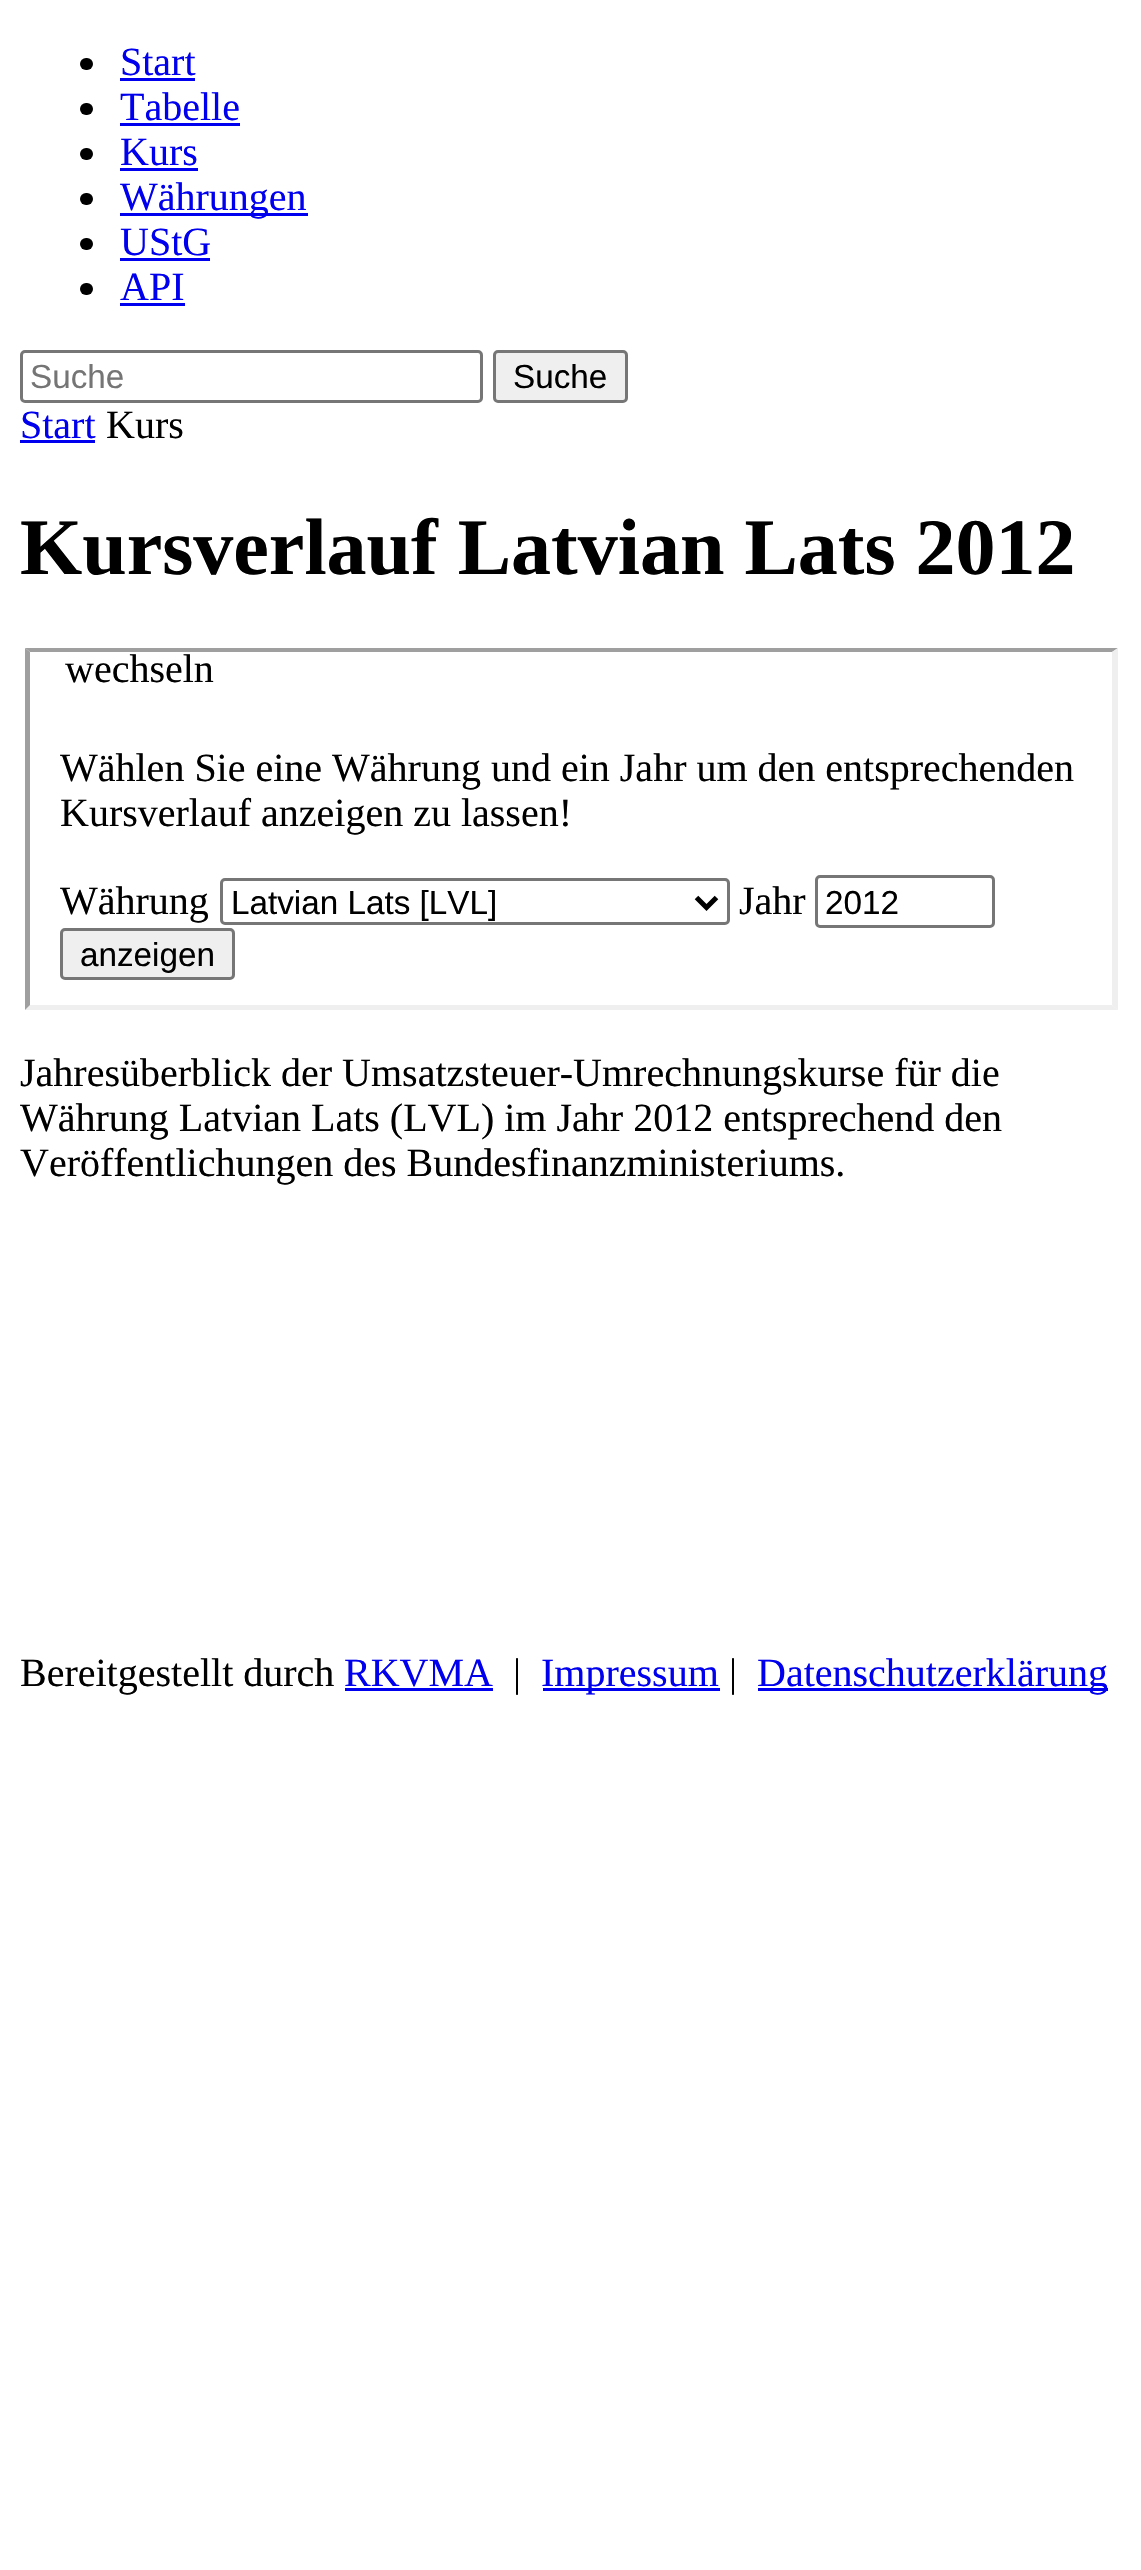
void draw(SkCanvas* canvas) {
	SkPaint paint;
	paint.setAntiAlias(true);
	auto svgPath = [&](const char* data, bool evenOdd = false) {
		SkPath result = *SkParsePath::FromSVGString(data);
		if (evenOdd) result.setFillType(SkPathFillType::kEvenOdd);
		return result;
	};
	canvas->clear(0xffffffff);
	paint.setColor(0xff000000);
	canvas->drawRoundRect(SkRect::MakeXYWH(80, 58, 13, 12), 6, 6, paint);
	SkFont f1(fontMgr->matchFamilyStyle("Liberation Serif", SkFontStyle::Normal()), 40);
	f1.setSubpixel(true);
	paint.setColor(0xff0000ee);
	canvas->drawString("Start", 120, 75, f1, paint);
	canvas->drawRect(SkRect::MakeXYWH(120, 78, 75, 3), paint);
	paint.setColor(0xff000000);
	canvas->drawRoundRect(SkRect::MakeXYWH(80, 103, 13, 12), 6, 6, paint);
	paint.setColor(0xff0000ee);
	canvas->drawString("Tabelle", 120, 120, f1, paint);
	canvas->drawRect(SkRect::MakeXYWH(120, 123, 120, 3), paint);
	paint.setColor(0xff000000);
	canvas->drawRoundRect(SkRect::MakeXYWH(80, 148, 13, 12), 6, 6, paint);
	paint.setColor(0xff0000ee);
	canvas->drawString("Kurs", 120, 165, f1, paint);
	canvas->drawRect(SkRect::MakeXYWH(120, 168, 78, 3), paint);
	paint.setColor(0xff000000);
	canvas->drawRoundRect(SkRect::MakeXYWH(80, 193, 13, 12), 6, 6, paint);
	paint.setColor(0xff0000ee);
	canvas->drawRect(SkRect::MakeXYWH(120, 213, 188, 3), paint);
	canvas->drawString("Währungen", 120, 210, f1, paint);
	paint.setColor(0xff000000);
	canvas->drawRoundRect(SkRect::MakeXYWH(80, 238, 13, 12), 6, 6, paint);
	paint.setColor(0xff0000ee);
	canvas->drawString("UStG", 120, 255, f1, paint);
	canvas->drawRect(SkRect::MakeXYWH(120, 258, 90, 3), paint);
	paint.setColor(0xff000000);
	canvas->drawRoundRect(SkRect::MakeXYWH(80, 283, 13, 12), 6, 6, paint);
	paint.setColor(0xff0000ee);
	canvas->drawString("API", 120, 300, f1, paint);
	canvas->drawRect(SkRect::MakeXYWH(120, 303, 65, 3), paint);
	paint.setStroke(true);
	paint.setStrokeWidth(3);
	paint.setColor(0xff767676);
	canvas->drawRoundRect(SkRect::MakeXYWH(21.5, 351.5, 460, 50), 3.5, 3.5, paint);
	SkFont f2(fontMgr->matchFamilyStyle("Liberation Sans", SkFontStyle::Normal()), 33.25);
	f2.setSubpixel(true);
	paint.setStroke(false);
	paint.setColor(0xff757575);
	canvas->drawString("Suche", 30, 388, f2, paint);
	paint.setColor(0xffefefef);
	canvas->drawRoundRect(SkRect::MakeXYWH(494.5, 351.5, 132, 50), 3.5, 3.5, paint);
	paint.setStroke(true);
	paint.setColor(0xff767676);
	canvas->drawRoundRect(SkRect::MakeXYWH(494.5, 351.5, 132, 50), 3.5, 3.5, paint);
	paint.setStroke(false);
	paint.setColor(0xff000000);
	canvas->drawString("Suche", 513, 388, f2, paint);
	paint.setColor(0xff0000ee);
	canvas->drawString("Start", 20, 438, f1, paint);
	canvas->drawRect(SkRect::MakeXYWH(20, 440, 75, 3), paint);
	paint.setColor(0xff000000);
	canvas->drawString("Kurs", 106, 438, f1, paint);
	SkFont f3(fontMgr->matchFamilyStyle("Liberation Serif", SkFontStyle::Bold()), 80);
	f3.setSubpixel(true);
	canvas->drawString("Kursverlauf Latvian Lats 2012", 20, 574, f3, paint);
	paint.setColor(0xff9f9f9f);
	canvas->drawPath(svgPath("M25 648H1118L1112 652H30Z"), paint);
	paint.setColor(0xffefefef);
	canvas->drawPath(svgPath("M1118 648V1010L1112 1005V652Z"), paint);
	canvas->drawPath(svgPath("M1118 1010H25L30 1005H1112Z"), paint);
	paint.setColor(0xff9f9f9f);
	canvas->drawPath(svgPath("M25 1010V648L30 652V1005Z"), paint);
	paint.setColor(0xff000000);
	canvas->drawString("wechseln", 65, 682, f1, paint);
	canvas->drawString("Wählen Sie eine Währung und ein Jahr um den entsprechenden", 60, 781, f1, paint);
	canvas->drawString("Kursverlauf anzeigen zu lassen!", 60, 826, f1, paint);
	canvas->drawString("Währung", 60, 914, f1, paint);
	paint.setStroke(true);
	paint.setColor(0xff767676);
	canvas->drawRoundRect(SkRect::MakeXYWH(221.5, 879.5, 507, 44), 3.5, 3.5, paint);
	paint.setStrokeWidth(5);
	paint.setColor(0xff000000);
	canvas->drawPath(svgPath("M696.5 897.5L706.5 907.5L716.5 897.5"), paint);
	paint.setStroke(false);
	canvas->drawString("Latvian Lats [LVL]", 231, 914, f2, paint);
	canvas->drawString("Jahr", 739, 914, f1, paint);
	paint.setStroke(true);
	paint.setStrokeWidth(3);
	paint.setColor(0xff767676);
	canvas->drawRoundRect(SkRect::MakeXYWH(816.5, 876.5, 177, 50), 3.5, 3.5, paint);
	paint.setStroke(false);
	paint.setColor(0xff000000);
	canvas->drawString("2012", 825, 914, f2, paint);
	paint.setColor(0xffefefef);
	canvas->drawRoundRect(SkRect::MakeXYWH(61.5, 929.5, 172, 49), 3.5, 3.5, paint);
	paint.setStroke(true);
	paint.setColor(0xff767676);
	canvas->drawRoundRect(SkRect::MakeXYWH(61.5, 929.5, 172, 49), 3.5, 3.5, paint);
	paint.setStroke(false);
	paint.setColor(0xff000000);
	canvas->drawString("anzeigen", 80, 966, f2, paint);
	canvas->drawString("Jahresüberblick der Umsatzsteuer-Umrechnungskurse für die", 20, 1086, f1, paint);
	canvas->drawString("Währung Latvian Lats (LVL) im Jahr 2012 entsprechend den", 20, 1131, f1, paint);
	canvas->drawString("Veröffentlichungen des Bundesfinanzministeriums.", 20, 1176, f1, paint);
	canvas->drawString("Bereitgestellt durch", 20, 1686, f1, paint);
	paint.setColor(0xff0000ee);
	canvas->drawString("RKVMA", 344, 1686, f1, paint);
	canvas->drawRect(SkRect::MakeXYWH(345, 1688, 148, 3), paint);
	paint.setColor(0xff000000);
	canvas->drawString("|", 513, 1686, f1, paint);
	paint.setColor(0xff0000ee);
	canvas->drawRect(SkRect::MakeXYWH(543, 1688, 177, 3), paint);
	canvas->drawString("Impressum", 541, 1686, f1, paint);
	paint.setColor(0xff000000);
	canvas->drawString("|", 729, 1686, f1, paint);
	paint.setColor(0xff0000ee);
	canvas->drawRect(SkRect::MakeXYWH(758, 1688, 350, 3), paint);
	canvas->drawString("Datenschutzerklärung", 757, 1686, f1, paint);
}
